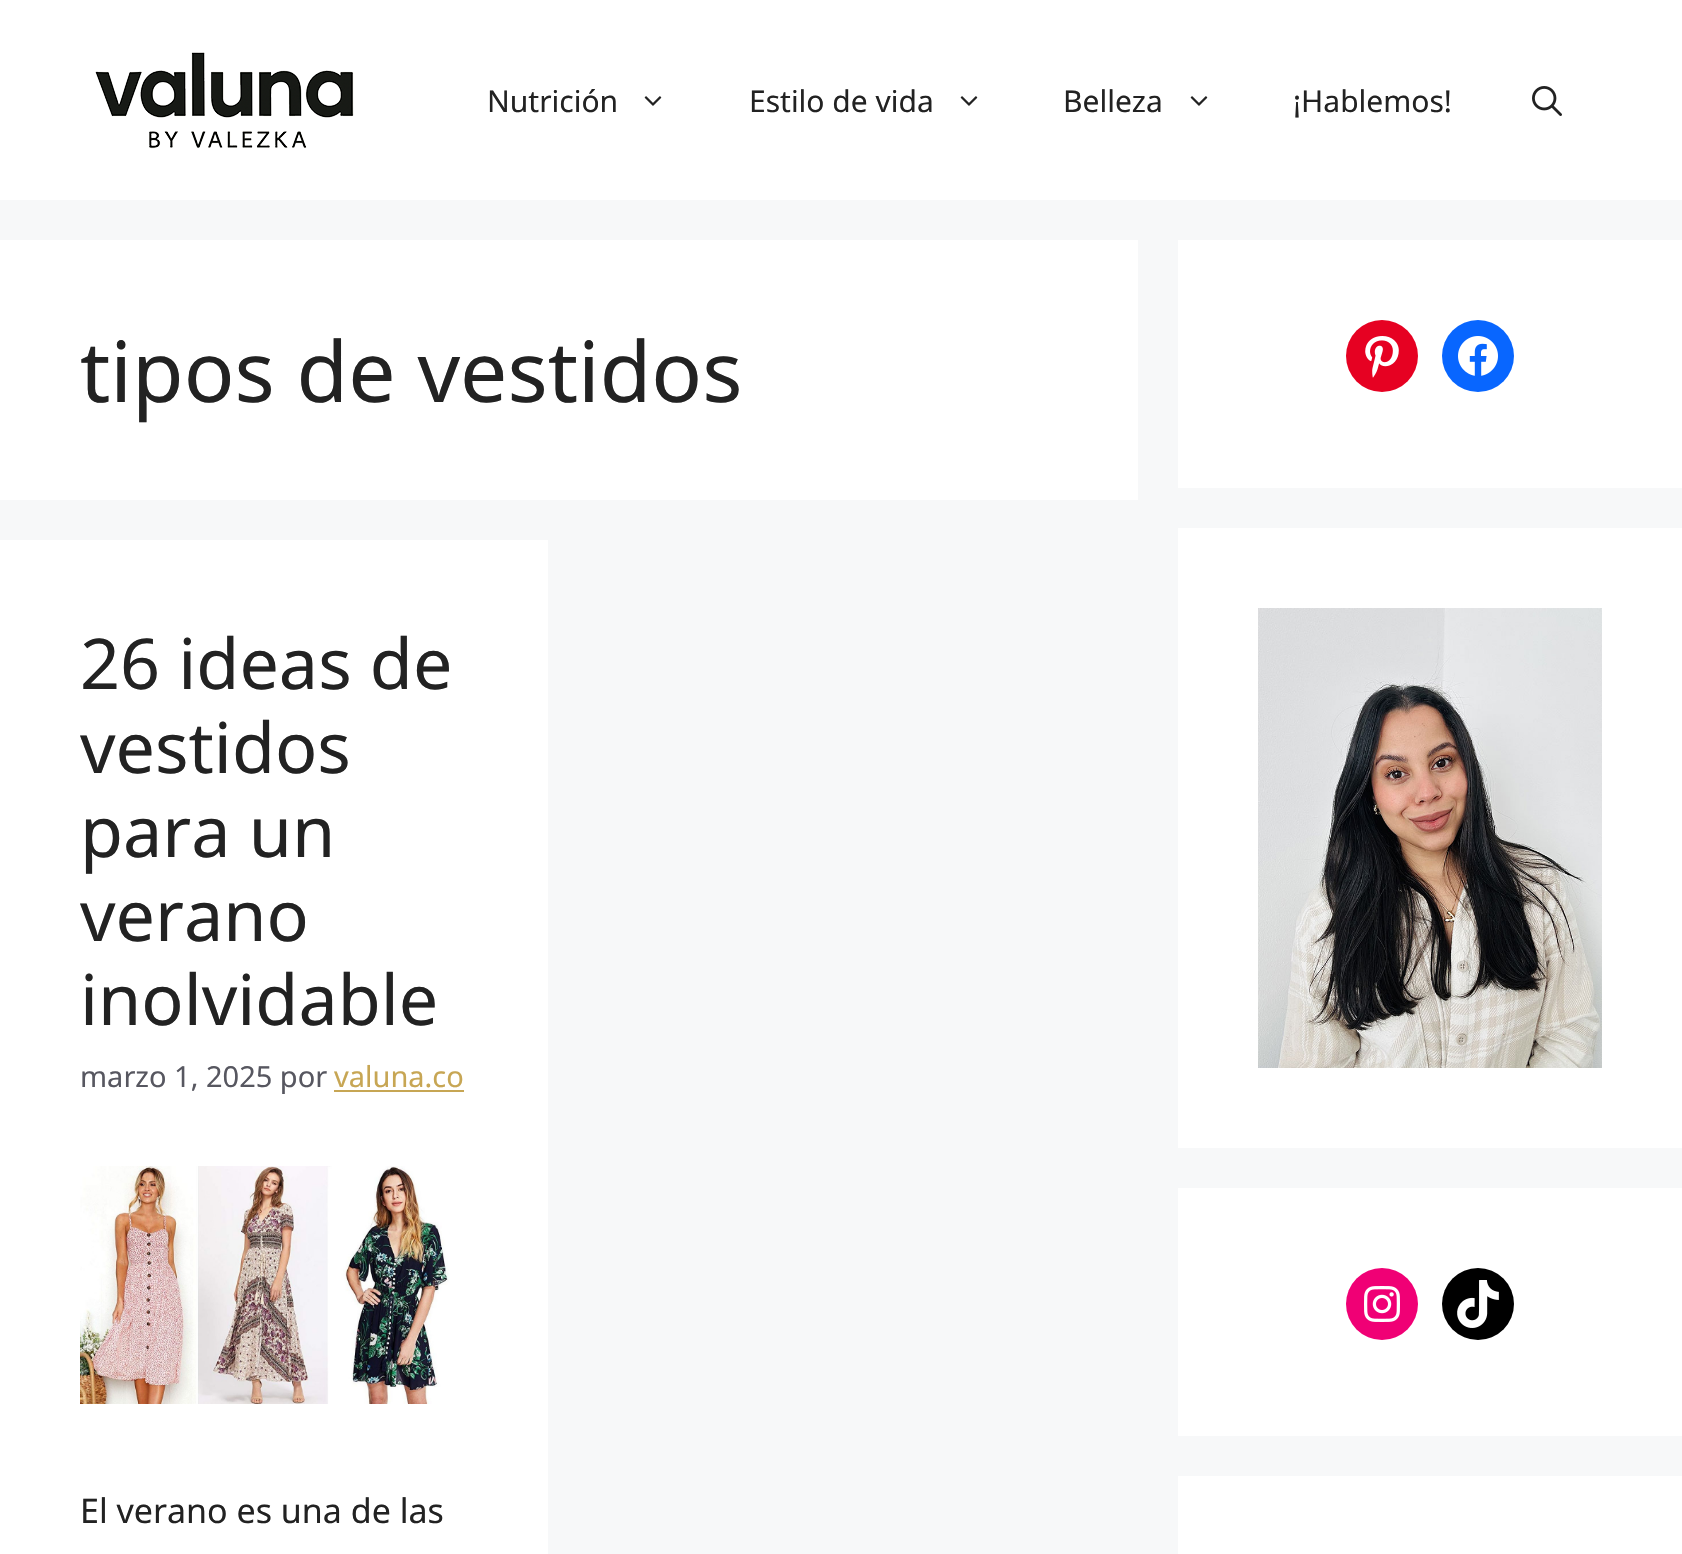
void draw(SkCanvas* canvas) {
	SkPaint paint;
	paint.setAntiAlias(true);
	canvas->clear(0xfff7f8f9);
	paint.setColor(0xffffffff);
	canvas->drawRect(SkRect::MakeXYWH(0, 0, 1682, 200), paint);
	canvas->drawImageRect(SkImages::DeferredFromEncodedData(SkData::MakeFromFileName("img1.png")), SkRect::MakeXYWH(95, 52, 259, 97), SkSamplingOptions());
	SkFont f1(fontMgr->matchFamilyStyle("Noto Sans", SkFontStyle::Normal()), 30);
	f1.setSubpixel(true);
	paint.setColor(0xff222222);
	canvas->drawString("Nutrición", 487, 112, f1, paint);
	canvas->drawImageRect(SkImages::DeferredFromEncodedData(SkData::MakeFromFileName("img2.png")), SkRect::MakeXYWH(644, 96, 18, 10), SkSamplingOptions());
	canvas->drawString("Estilo de vida", 749, 112, f1, paint);
	canvas->drawImageRect(SkImages::DeferredFromEncodedData(SkData::MakeFromFileName("img2.png")), SkRect::MakeXYWH(960, 96, 18, 10), SkSamplingOptions());
	canvas->drawString("Belleza", 1063, 112, f1, paint);
	canvas->drawImageRect(SkImages::DeferredFromEncodedData(SkData::MakeFromFileName("img2.png")), SkRect::MakeXYWH(1190, 96, 18, 10), SkSamplingOptions());
	canvas->drawString("¡Hablemos!", 1293, 112, f1, paint);
	canvas->drawImageRect(SkImages::DeferredFromEncodedData(SkData::MakeFromFileName("img3.png")), SkRect::MakeXYWH(1532, 86, 30, 30), SkSamplingOptions());
	paint.setColor(0xffffffff);
	canvas->drawRect(SkRect::MakeXYWH(0, 240, 1138, 260), paint);
	SkFont f2(fontMgr->matchFamilyStyle("Noto Sans", SkFontStyle::Normal()), 84);
	f2.setSubpixel(true);
	paint.setColor(0xff222222);
	canvas->drawString("tipos de vestidos", 80, 402, f2, paint);
	paint.setColor(0xffffffff);
	canvas->drawRect(SkRect::MakeXYWH(0, 540, 548, 1014), paint);
	SkFont f3(fontMgr->matchFamilyStyle("Noto Sans", SkFontStyle::Normal()), 70);
	f3.setSubpixel(true);
	paint.setColor(0xff222222);
	canvas->drawString("26 ideas de", 80, 689, f3, paint);
	canvas->drawString("vestidos", 80, 773, f3, paint);
	canvas->drawString("para un", 80, 857, f3, paint);
	canvas->drawString("verano", 80, 941, f3, paint);
	canvas->drawString("inolvidable", 80, 1025, f3, paint);
	SkFont f4(fontMgr->matchFamilyStyle("Noto Sans", SkFontStyle::Normal()), 29);
	f4.setSubpixel(true);
	paint.setColor(0xff575760);
	canvas->drawString("marzo 1, 2025 por", 80, 1087, f4, paint);
	paint.setColor(0xffc7a654);
	canvas->drawString("valuna.co", 334, 1087, f4, paint);
	canvas->drawRect(SkRect::MakeXYWH(334, 1090, 130, 2), paint);
	canvas->drawImageRect(SkImages::DeferredFromEncodedData(SkData::MakeFromFileName("img4.png")), SkRect::MakeXYWH(80, 1166, 370, 238), SkSamplingOptions());
	SkFont f5(fontMgr->matchFamilyStyle("Noto Sans", SkFontStyle::Normal()), 34);
	f5.setSubpixel(true);
	paint.setColor(0xff222222);
	canvas->drawString("El verano es una de las", 80, 1523, f5, paint);
	paint.setColor(0xffffffff);
	canvas->drawRect(SkRect::MakeXYWH(1178, 240, 504, 248), paint);
	paint.setColor(0xffe60122);
	canvas->drawCircle(1382, 356, 36, paint);
	canvas->drawImageRect(SkImages::DeferredFromEncodedData(SkData::MakeFromFileName("img5.png")), SkRect::MakeXYWH(1365, 336, 34, 42), SkSamplingOptions());
	paint.setColor(0xff0866ff);
	canvas->drawCircle(1478, 356, 36, paint);
	canvas->drawImageRect(SkImages::DeferredFromEncodedData(SkData::MakeFromFileName("img6.png")), SkRect::MakeXYWH(1458, 336, 40, 40), SkSamplingOptions());
	paint.setColor(0xffffffff);
	canvas->drawRect(SkRect::MakeXYWH(1178, 528, 504, 620), paint);
	canvas->drawImageRect(SkImages::DeferredFromEncodedData(SkData::MakeFromFileName("img7.png")), SkRect::MakeXYWH(1258, 608, 344, 460), SkSamplingOptions());
	canvas->drawRect(SkRect::MakeXYWH(1178, 1188, 504, 248), paint);
	paint.setColor(0xfff00075);
	canvas->drawCircle(1382, 1304, 36, paint);
	canvas->drawImageRect(SkImages::DeferredFromEncodedData(SkData::MakeFromFileName("img8.png")), SkRect::MakeXYWH(1364, 1286, 36, 36), SkSamplingOptions());
	paint.setColor(0xff000000);
	canvas->drawCircle(1478, 1304, 36, paint);
	canvas->drawImageRect(SkImages::DeferredFromEncodedData(SkData::MakeFromFileName("img9.png")), SkRect::MakeXYWH(1457, 1280, 42, 48), SkSamplingOptions());
	paint.setColor(0xffffffff);
	canvas->drawRect(SkRect::MakeXYWH(1178, 1476, 504, 78), paint);
}
